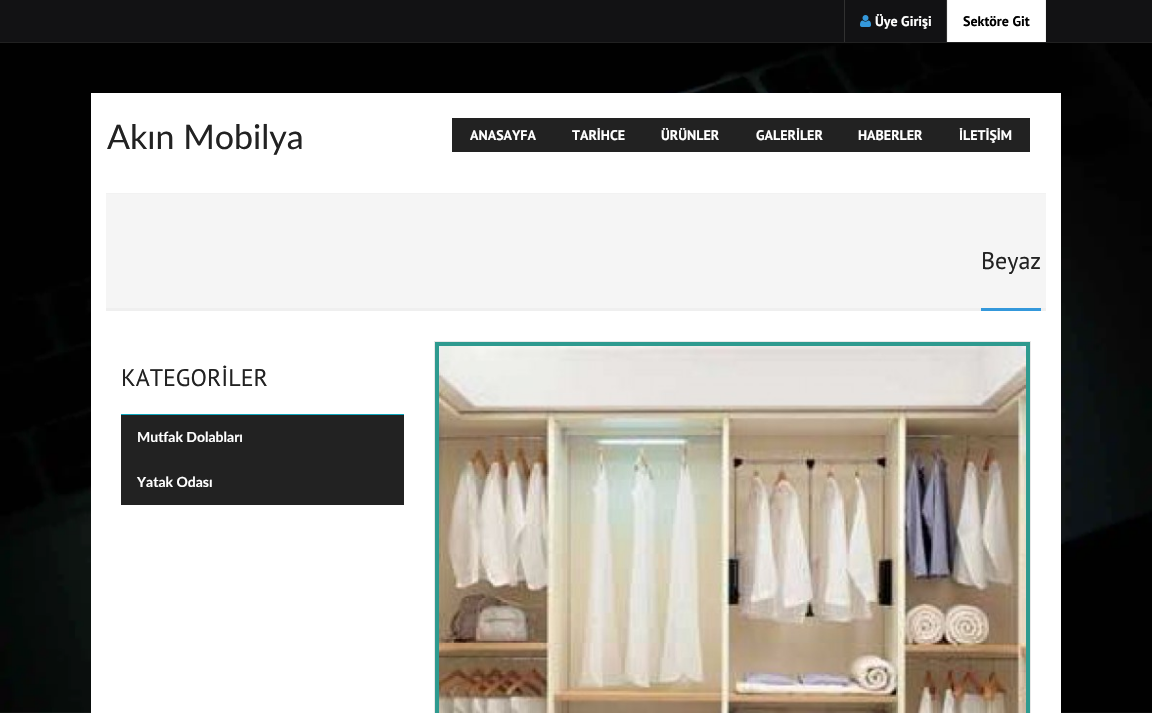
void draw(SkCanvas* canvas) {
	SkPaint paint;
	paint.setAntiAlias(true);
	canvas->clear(0xffffffff);
	canvas->drawImageRect(SkImages::DeferredFromEncodedData(SkData::MakeFromFileName("img1.png")), SkRect::MakeXYWH(0, 43, 1152, 670), SkSamplingOptions());
	paint.setColor(0xff121214);
	canvas->drawRect(SkRect::MakeXYWH(0, 0, 1152, 42), paint);
	paint.setColor(0xff212121);
	canvas->drawRect(SkRect::MakeXYWH(0, 42, 1152, 1), paint);
	paint.setColor(0xff313131);
	canvas->drawRect(SkRect::MakeXYWH(946, 0, 1, 42), paint);
	canvas->drawRect(SkRect::MakeXYWH(844, 0, 1, 42), paint);
	canvas->drawImageRect(SkImages::DeferredFromEncodedData(SkData::MakeFromFileName("img2.png")), SkRect::MakeXYWH(860, 15, 11, 12), SkSamplingOptions());
	SkFont f1(fontMgr->matchFamilyStyle("PT Sans", SkFontStyle::Bold()), 14);
	f1.setSubpixel(true);
	paint.setColor(0xffffffff);
	canvas->drawString("Üye Girişi", 875, 26, f1, paint);
	canvas->drawRect(SkRect::MakeXYWH(948, 0, 97, 42), paint);
	paint.setColor(0xfff2f2f2);
	canvas->drawRect(SkRect::MakeXYWH(1045, 0, 1, 42), paint);
	canvas->drawRect(SkRect::MakeXYWH(947, 0, 1, 42), paint);
	paint.setColor(0xff000000);
	canvas->drawString("Sektöre Git", 963, 26, f1, paint);
	paint.setColor(0xffffffff);
	canvas->drawRect(SkRect::MakeXYWH(91, 93, 970, 620), paint);
	paint.setColor(0xfff2f2f2);
	canvas->drawRect(SkRect::MakeXYWH(106, 193, 940, 1), paint);
	SkFont f2(fontMgr->matchFamilyStyle("Lato", SkFontStyle::Normal()), 34);
	f2.setSubpixel(true);
	paint.setColor(0xff222222);
	canvas->drawString("Akın Mobilya", 107, 149, f2, paint);
	canvas->drawRect(SkRect::MakeXYWH(452, 118, 578, 34), paint);
	paint.setColor(0xffffffff);
	canvas->drawString("ANASAYFA", 470, 140, f1, paint);
	canvas->drawString("TARİHCE", 572, 140, f1, paint);
	canvas->drawString("ÜRÜNLER", 661, 140, f1, paint);
	canvas->drawString("GALERİLER", 756, 140, f1, paint);
	canvas->drawString("HABERLER", 858, 140, f1, paint);
	canvas->drawString("İLETİŞİM", 959, 140, f1, paint);
	paint.setColor(0xfff5f5f5);
	canvas->drawRect(SkRect::MakeXYWH(106, 194, 940, 114), paint);
	paint.setColor(0xffefefef);
	canvas->drawRect(SkRect::MakeXYWH(106, 308, 940, 3), paint);
	paint.setColor(0xff3498db);
	canvas->drawRect(SkRect::MakeXYWH(981, 308, 60, 3), paint);
	SkFont f3(fontMgr->matchFamilyStyle("PT Sans", SkFontStyle::Normal()), 24);
	f3.setSubpixel(true);
	paint.setColor(0xff222222);
	canvas->drawString("Beyaz", 981, 269, f3, paint);
	canvas->drawString("KATEGORİLER", 121, 386, f3, paint);
	paint.setColor(0xff0fa6bc);
	canvas->drawRect(SkRect::MakeXYWH(121, 414, 283, 1), paint);
	paint.setColor(0xff222222);
	canvas->drawRect(SkRect::MakeXYWH(121, 415, 283, 90), paint);
	SkFont f4(fontMgr->matchFamilyStyle("Lato", SkFontStyle::Bold()), 14);
	f4.setSubpixel(true);
	paint.setColor(0xffffffff);
	canvas->drawString("Mutfak Dolabları", 137, 442, f4, paint);
	canvas->drawString("Yatak Odası", 137, 487, f4, paint);
	paint.setStroke(true);
	paint.setStrokeWidth(1);
	paint.setColor(0xffe8e8e8);
	canvas->drawRect(SkRect::MakeXYWH(434.5, 341.5, 596, 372), paint);
	paint.setStrokeWidth(4);
	paint.setColor(0xff2e9a8f);
	canvas->drawRect(SkRect::MakeXYWH(437, 344, 591, 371), paint);
	canvas->drawImageRect(SkImages::DeferredFromEncodedData(SkData::MakeFromFileName("img3.png")), SkRect::MakeXYWH(439, 346, 587, 367), SkSamplingOptions());
}
